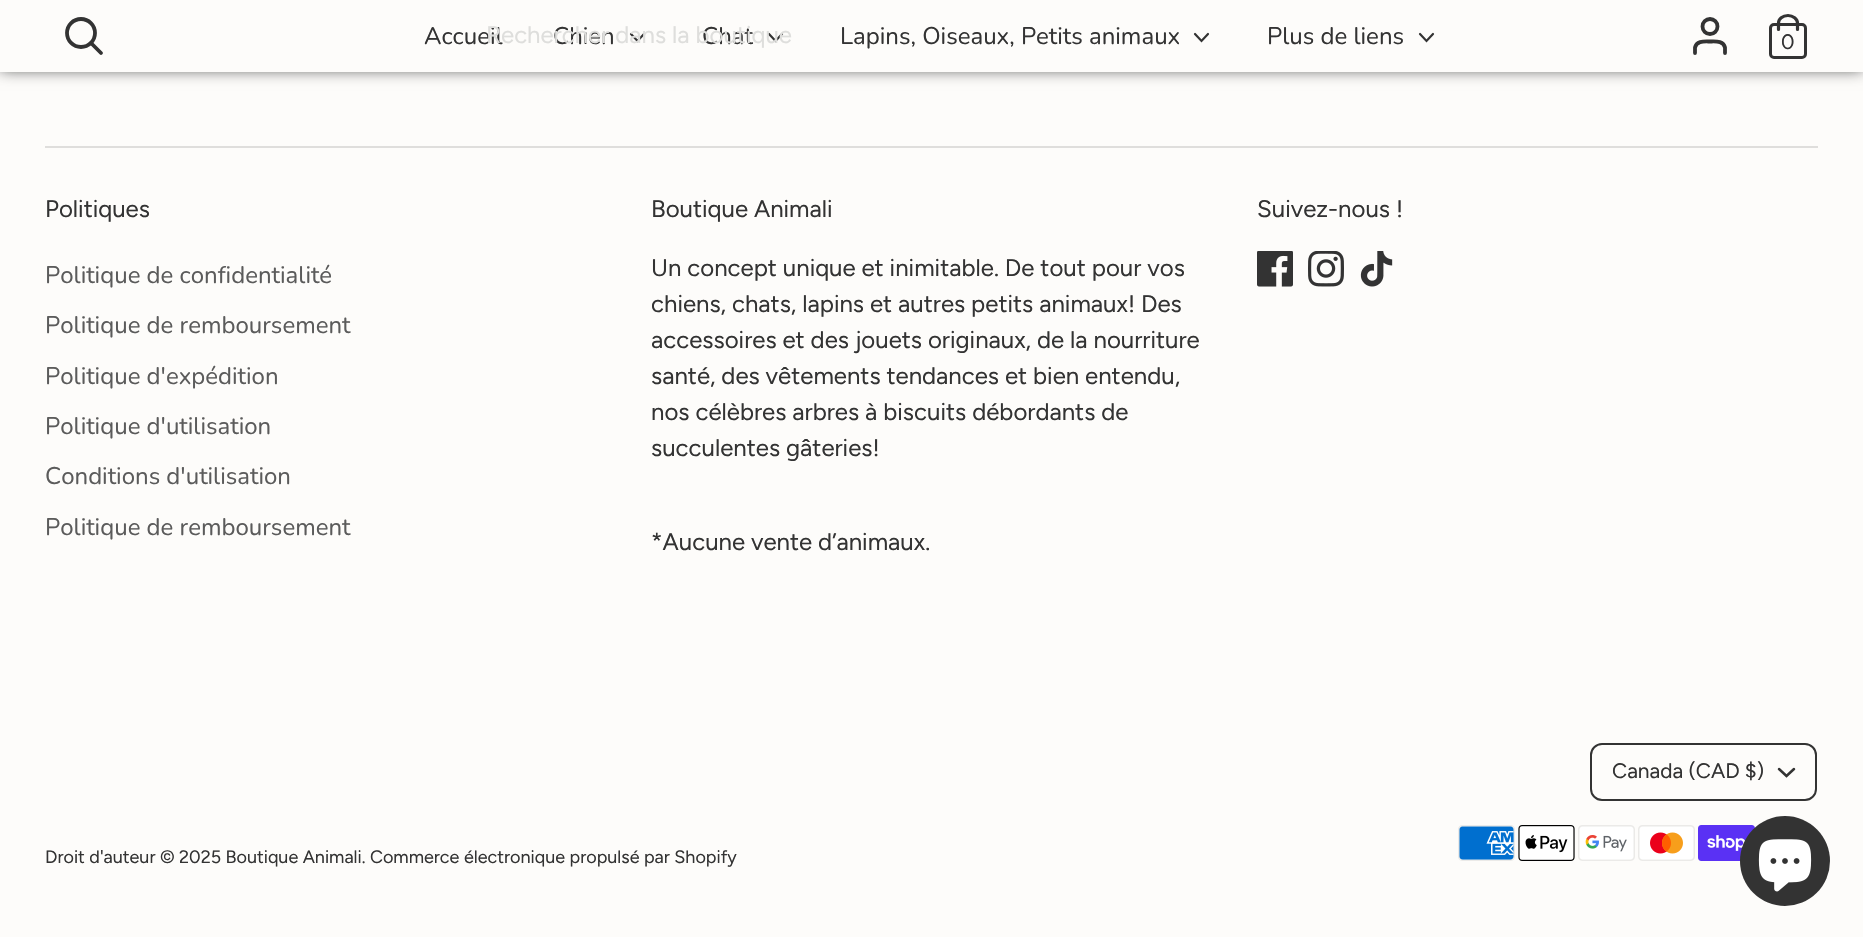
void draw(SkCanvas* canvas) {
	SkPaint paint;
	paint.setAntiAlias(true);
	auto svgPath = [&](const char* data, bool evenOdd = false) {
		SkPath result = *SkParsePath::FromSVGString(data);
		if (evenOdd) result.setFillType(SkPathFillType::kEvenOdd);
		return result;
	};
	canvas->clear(0xfffdfcfa);
	paint.setColor(0xbf000000);
	paint.setMaskFilter(SkMaskFilter::MakeBlur(kNormal_SkBlurStyle, 7.5));
	canvas->drawRect(SkRect::MakeXYWH(0, -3, 1863, 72), paint);
	paint.setMaskFilter(nullptr);
	paint.setColor(0xfffdfcfa);
	canvas->drawRect(SkRect::MakeXYWH(0, 0, 1863, 72), paint);
	paint.setStroke(true);
	paint.setStrokeWidth(3.8);
	paint.setColor(0xff333333);
	canvas->drawCircle(81, 33, 14, paint);
	paint.setStrokeCap(SkPaint::kRound_Cap);
	canvas->drawPath(svgPath("M101 53L91 43"), paint);
	SkFont f1(fontMgr->matchFamilyStyle("Nunito", SkFontStyle::Normal()), 24);
	f1.setSubpixel(true);
	paint.setStroke(false);
	canvas->drawString("Accueil", 424, 44, f1, paint);
	canvas->drawString("Chien", 553, 44, f1, paint);
	paint.setStroke(true);
	paint.setStrokeWidth(2.2);
	canvas->drawPath(svgPath("M631 34L637.5 41L644 34"), paint);
	paint.setStroke(false);
	canvas->drawString("Chat", 702, 44, f1, paint);
	paint.setStroke(true);
	canvas->drawPath(svgPath("M769 34L775.5 41L782 34"), paint);
	SkFont f2(fontMgr->matchFamilyStyle("Figtree", SkFontStyle::Normal()), 24);
	f2.setSubpixel(true);
	paint.setStroke(false);
	paint.setColor(0xffdededc);
	canvas->drawString("Rechercher dans la boutique", 486, 43, f2, paint);
	paint.setStroke(true);
	paint.setStrokeWidth(3.8);
	paint.setColor(0xff333333);
	canvas->drawPath(svgPath("M1725 53V47.5C1723.5 40.5 1715.5 41.5 1710 41.5C1704.5 41.5 1696.5 40.5 1695 47.5V53"), paint);
	paint.setStrokeCap(SkPaint::kButt_Cap);
	canvas->drawCircle(1710, 26.5, 7.5, paint);
	paint.setStrokeWidth(3);
	canvas->drawRoundRect(SkRect::MakeXYWH(1770.5, 24.5, 35, 33), 3.5, 3.5, paint);
	paint.setStrokeWidth(3.2);
	paint.setStrokeCap(SkPaint::kRound_Cap);
	canvas->drawPath(svgPath("M1778.5 29.5V23C1778.5 19 1782.5 15.5 1788 15.5C1793 15.5 1797.5 19 1797.5 23V29.5"), paint);
	SkFont f3(fontMgr->matchFamilyStyle("Figtree", SkFontStyle::Normal()), 21);
	f3.setSubpixel(true);
	paint.setStroke(false);
	canvas->drawString("0", 1781, 49, f3, paint);
	canvas->drawString("Lapins, Oiseaux, Petits animaux", 840, 44, f1, paint);
	paint.setStroke(true);
	paint.setStrokeWidth(2.2);
	canvas->drawPath(svgPath("M1195 34L1201.5 41L1208 34"), paint);
	paint.setStroke(false);
	canvas->drawString("Plus de liens", 1267, 44, f1, paint);
	paint.setStroke(true);
	canvas->drawPath(svgPath("M1420 34L1426.5 41L1433 34"), paint);
	paint.setStroke(false);
	paint.setColor(0xffdfdedc);
	canvas->drawRect(SkRect::MakeXYWH(45, 146, 1773, 2), paint);
	paint.setColor(0xff333333);
	canvas->drawString("Politiques", 45, 217, f2, paint);
	paint.setColor(0xff5b5b5b);
	canvas->drawString("Politique de confidentialité", 45, 283, f1, paint);
	canvas->drawString("Politique de remboursement", 45, 333, f1, paint);
	canvas->drawString("Politique d'expédition", 45, 384, f1, paint);
	canvas->drawString("Politique d'utilisation", 45, 434, f1, paint);
	canvas->drawString("Conditions d'utilisation", 45, 484, f1, paint);
	canvas->drawString("Politique de remboursement", 45, 535, f1, paint);
	paint.setColor(0xff333333);
	canvas->drawString("Boutique Animali", 651, 217, f2, paint);
	canvas->drawString("Un concept unique et inimitable. De tout pour vos", 651, 276, f2, paint);
	canvas->drawString("chiens, chats, lapins et autres petits animaux! Des", 651, 312, f2, paint);
	canvas->drawString("accessoires et des jouets originaux, de la nourriture", 651, 348, f2, paint);
	canvas->drawString("santé, des vêtements tendances et bien entendu,", 651, 384, f2, paint);
	canvas->drawString("nos célèbres arbres à biscuits débordants de", 651, 420, f2, paint);
	canvas->drawString("succulentes gâteries!", 651, 456, f2, paint);
	canvas->drawString("*Aucune vente d’animaux.", 651, 550, f2, paint);
	canvas->drawString("Suivez-nous !", 1257, 217, f2, paint);
	canvas->drawImageRect(SkImages::DeferredFromEncodedData(SkData::MakeFromFileName("img1.png")), SkRect::MakeXYWH(1257, 251, 36, 36), SkSamplingOptions());
	canvas->drawImageRect(SkImages::DeferredFromEncodedData(SkData::MakeFromFileName("img2.png")), SkRect::MakeXYWH(1308, 251, 36, 36), SkSamplingOptions());
	canvas->drawImageRect(SkImages::DeferredFromEncodedData(SkData::MakeFromFileName("img3.png")), SkRect::MakeXYWH(1360, 251, 33, 36), SkSamplingOptions());
	paint.setStroke(true);
	paint.setStrokeWidth(2);
	paint.setStrokeCap(SkPaint::kButt_Cap);
	canvas->drawRoundRect(SkRect::MakeXYWH(1591, 744, 225, 56), 11, 11, paint);
	paint.setStroke(false);
	canvas->drawString("Canada (CAD $)", 1612, 778, f3, paint);
	paint.setStroke(true);
	paint.setStrokeWidth(2.5);
	paint.setStrokeCap(SkPaint::kRound_Cap);
	canvas->drawPath(svgPath("M1779 769L1786.5 776L1794 769"), paint);
	canvas->drawImageRect(SkImages::DeferredFromEncodedData(SkData::MakeFromFileName("img4.png")), SkRect::MakeXYWH(1458, 825, 57, 36), SkSamplingOptions());
	canvas->drawImageRect(SkImages::DeferredFromEncodedData(SkData::MakeFromFileName("img5.png")), SkRect::MakeXYWH(1518, 825, 57, 36), SkSamplingOptions());
	canvas->drawImageRect(SkImages::DeferredFromEncodedData(SkData::MakeFromFileName("img6.png")), SkRect::MakeXYWH(1578, 825, 57, 36), SkSamplingOptions());
	canvas->drawImageRect(SkImages::DeferredFromEncodedData(SkData::MakeFromFileName("img7.png")), SkRect::MakeXYWH(1638, 825, 57, 36), SkSamplingOptions());
	canvas->drawImageRect(SkImages::DeferredFromEncodedData(SkData::MakeFromFileName("img8.png")), SkRect::MakeXYWH(1698, 825, 57, 36), SkSamplingOptions());
	canvas->drawImageRect(SkImages::DeferredFromEncodedData(SkData::MakeFromFileName("img9.png")), SkRect::MakeXYWH(1812, 825, 3, 3), SkSamplingOptions());
	SkFont f4(fontMgr->matchFamilyStyle("Figtree", SkFontStyle::Normal()), 18);
	f4.setSubpixel(true);
	paint.setStroke(false);
	canvas->drawString("Droit d'auteur © 2025 Boutique Animali. Commerce électronique propulsé par Shopify", 45, 863, f4, paint);
	canvas->drawCircle(1785, 861, 45, paint);
	canvas->drawImageRect(SkImages::DeferredFromEncodedData(SkData::MakeFromFileName("img10.png")), SkRect::MakeXYWH(1758, 839, 54, 53), SkSamplingOptions());
}
